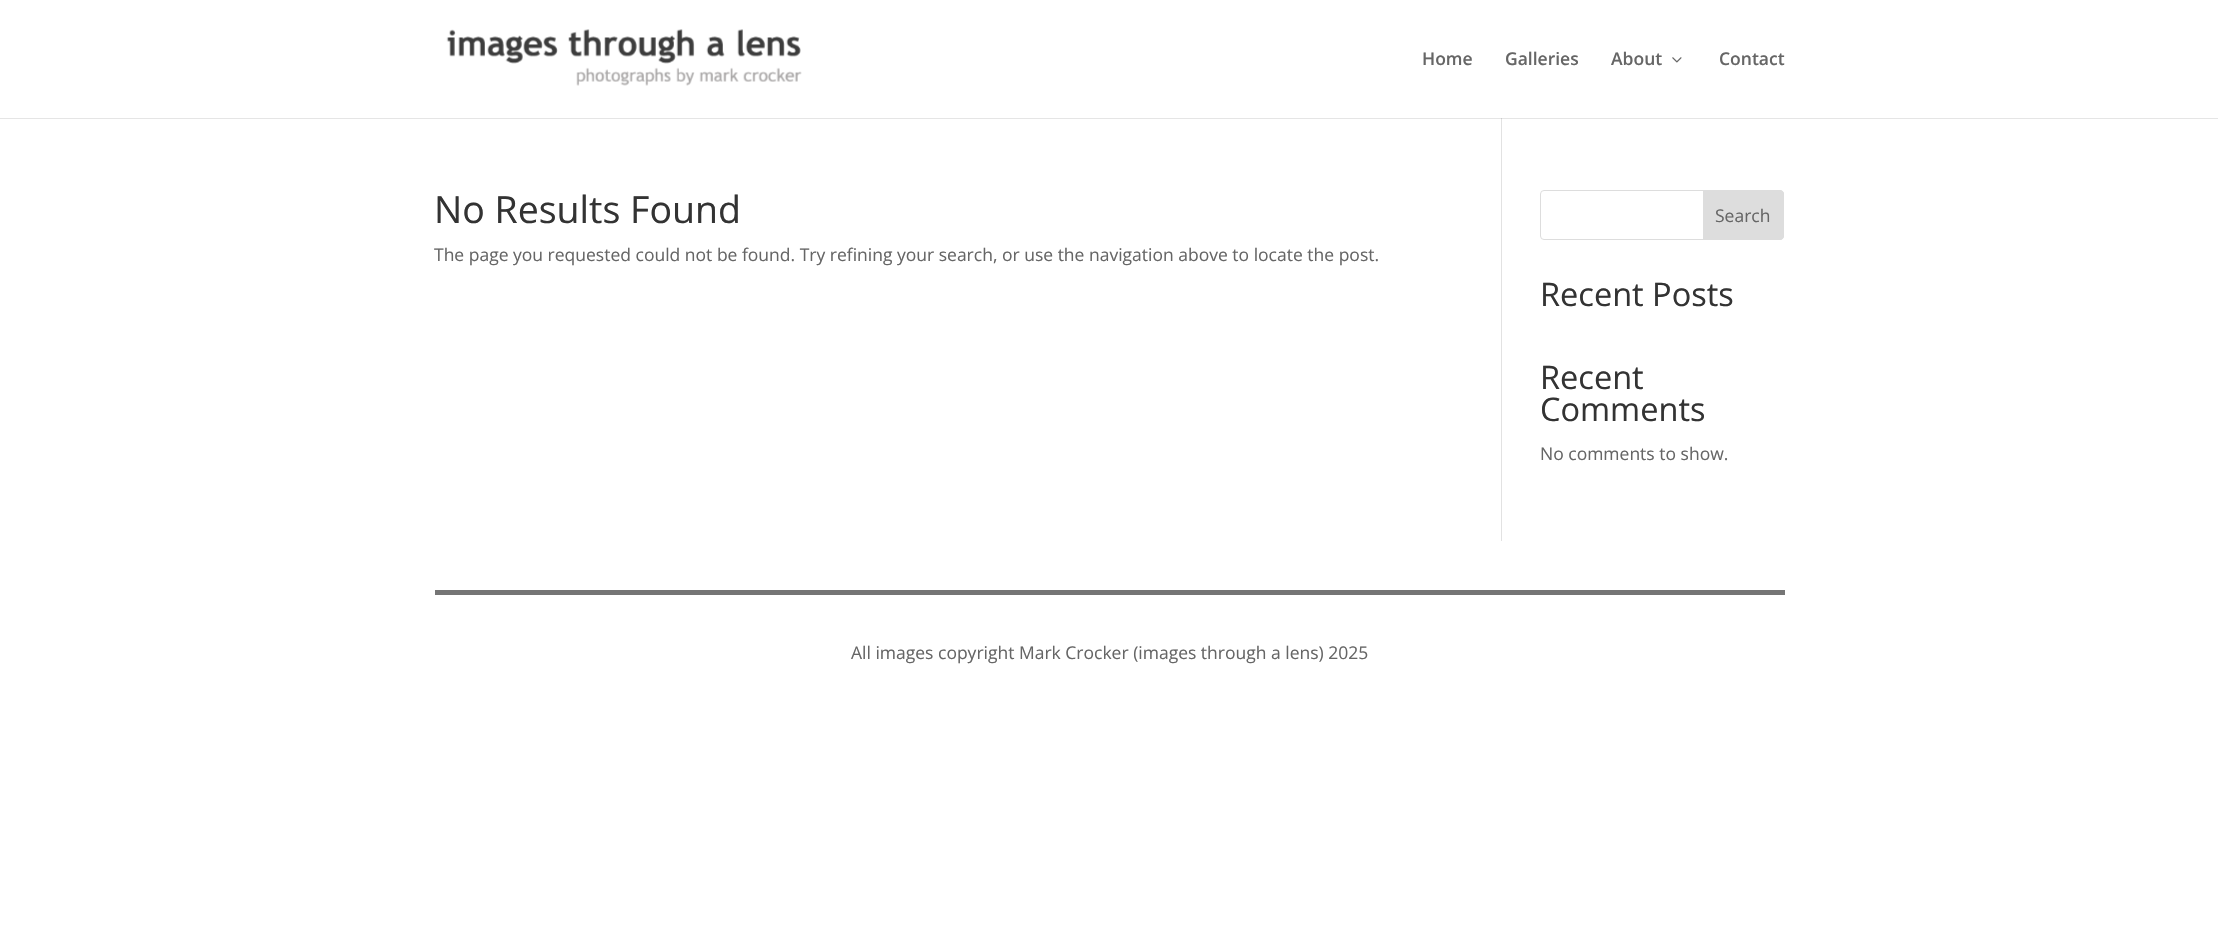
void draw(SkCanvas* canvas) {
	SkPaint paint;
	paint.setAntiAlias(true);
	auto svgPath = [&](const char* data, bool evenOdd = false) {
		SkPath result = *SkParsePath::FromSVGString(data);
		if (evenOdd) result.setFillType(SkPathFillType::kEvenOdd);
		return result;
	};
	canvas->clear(0xffffffff);
	paint.setColor(0xffe2e2e2);
	canvas->drawRect(SkRect::MakeXYWH(1501, 118, 1, 423), paint);
	paint.setColor(0x1a000000);
	canvas->drawPath(svgPath("M0 118V119H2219V1V118Z"), paint);
	canvas->drawImageRect(SkImages::DeferredFromEncodedData(SkData::MakeFromFileName("img1.png")), SkRect::MakeXYWH(446, 29, 356, 57), SkSamplingOptions());
	SkFont f1(fontMgr->matchFamilyStyle("Open Sans", SkFontStyle(600, SkFontStyle::kNormal_Width, SkFontStyle::kUpright_Slant)), 17.5);
	f1.setSubpixel(true);
	paint.setColor(0xff666666);
	canvas->drawString("Home", 1422, 65, f1, paint);
	canvas->drawString("Galleries", 1505, 65, f1, paint);
	canvas->drawString("About", 1611, 65, f1, paint);
	canvas->drawImageRect(SkImages::DeferredFromEncodedData(SkData::MakeFromFileName("img2.png")), SkRect::MakeXYWH(1672, 57, 10, 6), SkSamplingOptions());
	canvas->drawString("Contact", 1719, 65, f1, paint);
	SkFont f2(fontMgr->matchFamilyStyle("Open Sans", SkFontStyle::Normal()), 37.5);
	f2.setSubpixel(true);
	paint.setColor(0xff333333);
	canvas->drawString("No Results Found", 434, 223, f2, paint);
	SkFont f3(fontMgr->matchFamilyStyle("Open Sans", SkFontStyle::Normal()), 17.5);
	f3.setSubpixel(true);
	paint.setColor(0xff666666);
	canvas->drawString("The page you requested could not be found. Try refining your search, or use the navigation above to locate the post.", 434, 261, f3, paint);
	paint.setStroke(true);
	paint.setStrokeWidth(1);
	paint.setColor(0xffdddddd);
	canvas->drawRoundRect(SkRect::MakeXYWH(1540.5, 190.5, 243, 49), 3.5, 3.5, paint);
	paint.setStroke(false);
	canvas->drawPath(svgPath("M1703.5 190.5H1780C1782 190.5 1783.5 192 1783.5 194V236C1783.5 238 1782 239.5 1780 239.5H1703.5Z"), paint);
	paint.setStroke(true);
	canvas->drawPath(svgPath("M1703.5 190.5H1780C1782 190.5 1783.5 192 1783.5 194V236C1783.5 238 1782 239.5 1780 239.5H1703.5Z"), paint);
	paint.setStroke(false);
	paint.setColor(0xff666666);
	canvas->drawString("Search", 1715, 222, f3, paint);
	SkFont f4(fontMgr->matchFamilyStyle("Open Sans", SkFontStyle::Normal()), 32.5);
	f4.setSubpixel(true);
	paint.setColor(0xff333333);
	canvas->drawString("Recent Posts", 1540, 306, f4, paint);
	canvas->drawString("Recent", 1540, 389, f4, paint);
	canvas->drawString("Comments", 1540, 421, f4, paint);
	paint.setColor(0xff666666);
	canvas->drawString("No comments to show.", 1540, 460, f3, paint);
	paint.setColor(0xff757575);
	canvas->drawRect(SkRect::MakeXYWH(435, 590, 1350, 5), paint);
	paint.setColor(0xff666666);
	canvas->drawString("All images copyright Mark Crocker (images through a lens) 2025", 851, 659, f3, paint);
}
